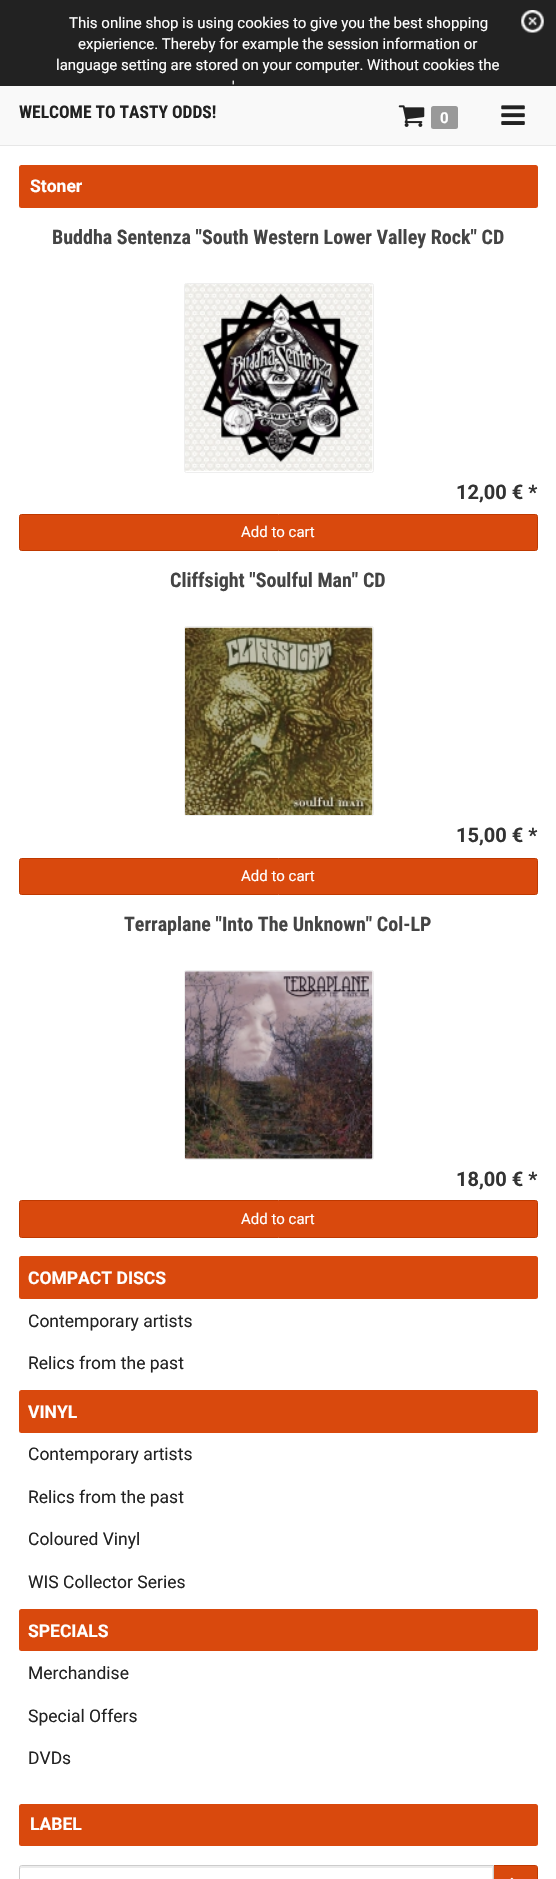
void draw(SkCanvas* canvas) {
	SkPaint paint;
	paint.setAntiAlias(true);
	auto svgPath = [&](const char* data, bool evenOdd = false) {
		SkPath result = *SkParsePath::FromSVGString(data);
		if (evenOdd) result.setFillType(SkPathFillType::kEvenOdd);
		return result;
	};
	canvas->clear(0xffffffff);
	paint.setColor(0xff222222);
	canvas->drawRect(SkRect::MakeXYWH(0, 0, 556, 86), paint);
	SkFont f1(fontMgr->matchFamilyStyle("Roboto", SkFontStyle::Normal()), 15);
	f1.setSubpixel(true);
	paint.setColor(0xffffffff);
	canvas->drawString("This online shop is using cookies to give you the best shopping", 69, 28, f1, paint);
	canvas->drawImageRect(SkImages::DeferredFromEncodedData(SkData::MakeFromFileName("img1.png")), SkRect::MakeXYWH(521, 10, 23, 23), SkSamplingOptions());
	canvas->drawString("expierience. Thereby for example the session information or", 78, 49, f1, paint);
	canvas->drawString("language setting are stored on your computer. Without cookies the", 56, 70, f1, paint);
	canvas->drawString("'", 232, 92, f1, paint);
	paint.setColor(0xfff9f9f9);
	canvas->drawRect(SkRect::MakeXYWH(0, 86, 556, 59), paint);
	paint.setColor(0xffe7e7e7);
	canvas->drawRect(SkRect::MakeXYWH(0, 145, 556, 1), paint);
	SkFont f2(fontMgr->matchFamilyStyle("Roboto Condensed", SkFontStyle::Bold()), 17.5);
	f2.setSubpixel(true);
	paint.setColor(0xff222222);
	canvas->drawString("WELCOME TO TASTY ODDS!", 19, 118, f2, paint);
	canvas->drawImageRect(SkImages::DeferredFromEncodedData(SkData::MakeFromFileName("img2.png")), SkRect::MakeXYWH(398, 105, 27, 22), SkSamplingOptions());
	paint.setColor(0xff999999);
	canvas->drawRoundRect(SkRect::MakeXYWH(431, 106, 27, 23), 2.5, 2.5, paint);
	SkFont f3(fontMgr->matchFamilyStyle("Roboto", SkFontStyle::Bold()), 15);
	f3.setSubpixel(true);
	paint.setColor(0xffffffff);
	canvas->drawString("0", 440, 123, f3, paint);
	canvas->drawImageRect(SkImages::DeferredFromEncodedData(SkData::MakeFromFileName("img3.png")), SkRect::MakeXYWH(501, 105, 24, 20), SkSamplingOptions());
	paint.setColor(0xffd9490d);
	canvas->drawRoundRect(SkRect::MakeXYWH(19, 165, 519, 43), 2.5, 2.5, paint);
	SkFont f4(fontMgr->matchFamilyStyle("Roboto", SkFontStyle::Bold()), 17.5);
	f4.setSubpixel(true);
	paint.setColor(0xffffffff);
	canvas->drawString("Stoner", 30, 192, f4, paint);
	SkFont f5(fontMgr->matchFamilyStyle("Roboto Condensed", SkFontStyle::Bold()), 20);
	f5.setSubpixel(true);
	paint.setColor(0xff444444);
	canvas->drawString("Buddha Sentenza \"South Western Lower Valley Rock\" CD", 52, 244, f5, paint);
	paint.setStroke(true);
	paint.setStrokeWidth(1);
	paint.setColor(0xffeeeeee);
	canvas->drawRoundRect(SkRect::MakeXYWH(184.5, 283.5, 189, 189), 2, 2, paint);
	canvas->drawImageRect(SkImages::DeferredFromEncodedData(SkData::MakeFromFileName("img4.png")), SkRect::MakeXYWH(185, 284, 188, 187), SkSamplingOptions());
	SkFont f6(fontMgr->matchFamilyStyle("Roboto", SkFontStyle::Bold()), 20);
	f6.setSubpixel(true);
	paint.setStroke(false);
	paint.setColor(0xff333333);
	canvas->drawString("12,00 € *", 456, 499, f6, paint);
	paint.setColor(0xffd9490d);
	canvas->drawRoundRect(SkRect::MakeXYWH(19.5, 514.5, 518, 36), 2, 2, paint);
	paint.setStroke(true);
	paint.setColor(0xffbf3900);
	canvas->drawRoundRect(SkRect::MakeXYWH(19.5, 514.5, 518, 36), 2, 2, paint);
	paint.setStroke(false);
	paint.setColor(0xffffffff);
	canvas->drawString("Add to cart", 241, 537, f1, paint);
	paint.setColor(0xff444444);
	canvas->drawString("Cliffsight \"Soulful Man\" CD", 170, 587, f5, paint);
	paint.setStroke(true);
	paint.setColor(0xffeeeeee);
	canvas->drawRoundRect(SkRect::MakeXYWH(184.5, 626.5, 189, 189), 2, 2, paint);
	canvas->drawImageRect(SkImages::DeferredFromEncodedData(SkData::MakeFromFileName("img5.png")), SkRect::MakeXYWH(185, 627, 188, 188), SkSamplingOptions());
	paint.setStroke(false);
	paint.setColor(0xff333333);
	canvas->drawString("15,00 € *", 456, 842, f6, paint);
	paint.setColor(0xffd9490d);
	canvas->drawRoundRect(SkRect::MakeXYWH(19.5, 858.5, 518, 36), 2, 2, paint);
	paint.setStroke(true);
	paint.setColor(0xffbf3900);
	canvas->drawRoundRect(SkRect::MakeXYWH(19.5, 858.5, 518, 36), 2, 2, paint);
	paint.setStroke(false);
	paint.setColor(0xffffffff);
	canvas->drawString("Add to cart", 241, 881, f1, paint);
	paint.setColor(0xff444444);
	canvas->drawString("Terraplane \"Into The Unknown\" Col-LP", 124, 931, f5, paint);
	paint.setStroke(true);
	paint.setColor(0xffeeeeee);
	canvas->drawRoundRect(SkRect::MakeXYWH(184.5, 970.5, 189, 189), 2, 2, paint);
	canvas->drawImageRect(SkImages::DeferredFromEncodedData(SkData::MakeFromFileName("img6.png")), SkRect::MakeXYWH(185, 971, 188, 188), SkSamplingOptions());
	paint.setStroke(false);
	paint.setColor(0xff333333);
	canvas->drawString("18,00 € *", 456, 1186, f6, paint);
	paint.setColor(0xffd9490d);
	canvas->drawRoundRect(SkRect::MakeXYWH(19.5, 1200.5, 518, 37), 2, 2, paint);
	paint.setStroke(true);
	paint.setColor(0xffbf3900);
	canvas->drawRoundRect(SkRect::MakeXYWH(19.5, 1200.5, 518, 37), 2, 2, paint);
	paint.setStroke(false);
	paint.setColor(0xffffffff);
	canvas->drawString("Add to cart", 241, 1224, f1, paint);
	paint.setColor(0xffd9490d);
	canvas->drawRoundRect(SkRect::MakeXYWH(19, 1256, 519, 43), 2.5, 2.5, paint);
	paint.setColor(0xffffffff);
	canvas->drawString("COMPACT DISCS", 28, 1284, f4, paint);
	SkFont f7(fontMgr->matchFamilyStyle("Roboto", SkFontStyle::Normal()), 17.5);
	f7.setSubpixel(true);
	paint.setColor(0xff222222);
	canvas->drawString("Contemporary artists", 28, 1327, f7, paint);
	canvas->drawString("Relics from the past", 28, 1369, f7, paint);
	paint.setColor(0xffd9490d);
	canvas->drawRoundRect(SkRect::MakeXYWH(19, 1390, 519, 43), 2.5, 2.5, paint);
	paint.setColor(0xffffffff);
	canvas->drawString("VINYL", 28, 1418, f4, paint);
	paint.setColor(0xff222222);
	canvas->drawString("Contemporary artists", 28, 1460, f7, paint);
	canvas->drawString("Relics from the past", 28, 1503, f7, paint);
	canvas->drawString("Coloured Vinyl", 28, 1545, f7, paint);
	canvas->drawString("WIS Collector Series", 28, 1588, f7, paint);
	paint.setColor(0xffd9490d);
	canvas->drawRoundRect(SkRect::MakeXYWH(19, 1609, 519, 42), 2.5, 2.5, paint);
	paint.setColor(0xffffffff);
	canvas->drawString("SPECIALS", 28, 1637, f4, paint);
	paint.setColor(0xff222222);
	canvas->drawString("Merchandise", 28, 1679, f7, paint);
	canvas->drawString("Special Offers", 28, 1722, f7, paint);
	canvas->drawString("DVDs", 28, 1764, f7, paint);
	paint.setColor(0xffd9490d);
	canvas->drawRoundRect(SkRect::MakeXYWH(19, 1804, 519, 42), 2.5, 2.5, paint);
	paint.setColor(0xffffffff);
	canvas->drawString("LABEL", 30, 1830, f4, paint);
	paint.setColor(0xffd9490d);
	canvas->drawPath(svgPath("M493.5 1865.5H535.5C536.5 1865.5 537.5 1866.5 537.5 1867.5V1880.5C537.5 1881.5 536.5 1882.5 535.5 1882.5H493.5Z"), paint);
	paint.setStroke(true);
	paint.setColor(0xffbf3900);
	canvas->drawPath(svgPath("M493.5 1865.5H535.5C536.5 1865.5 537.5 1866.5 537.5 1867.5V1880.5C537.5 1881.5 536.5 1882.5 535.5 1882.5H493.5Z"), paint);
	paint.setStroke(false);
	paint.setColor(0xffffffff);
	canvas->drawPath(svgPath("M21.5 1865H494V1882H21.5C20 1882 19 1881 19 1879.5V1867.5C19 1866 20 1865 21.5 1865Z"), paint);
	paint.setColor(0xffececec);
	canvas->drawPath(svgPath("M21 1868H492V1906H493V1866H21H20V1869Z"), paint);
	paint.setStroke(true);
	paint.setColor(0xffcccccc);
	canvas->drawPath(svgPath("M21.5 1865.5H493.5V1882.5H21.5C20.5 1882.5 19.5 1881.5 19.5 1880.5V1867.5C19.5 1866.5 20.5 1865.5 21.5 1865.5Z"), paint);
	canvas->drawImageRect(SkImages::DeferredFromEncodedData(SkData::MakeFromFileName("img7.png")), SkRect::MakeXYWH(510, 1877, 4, 2), SkSamplingOptions());
}
